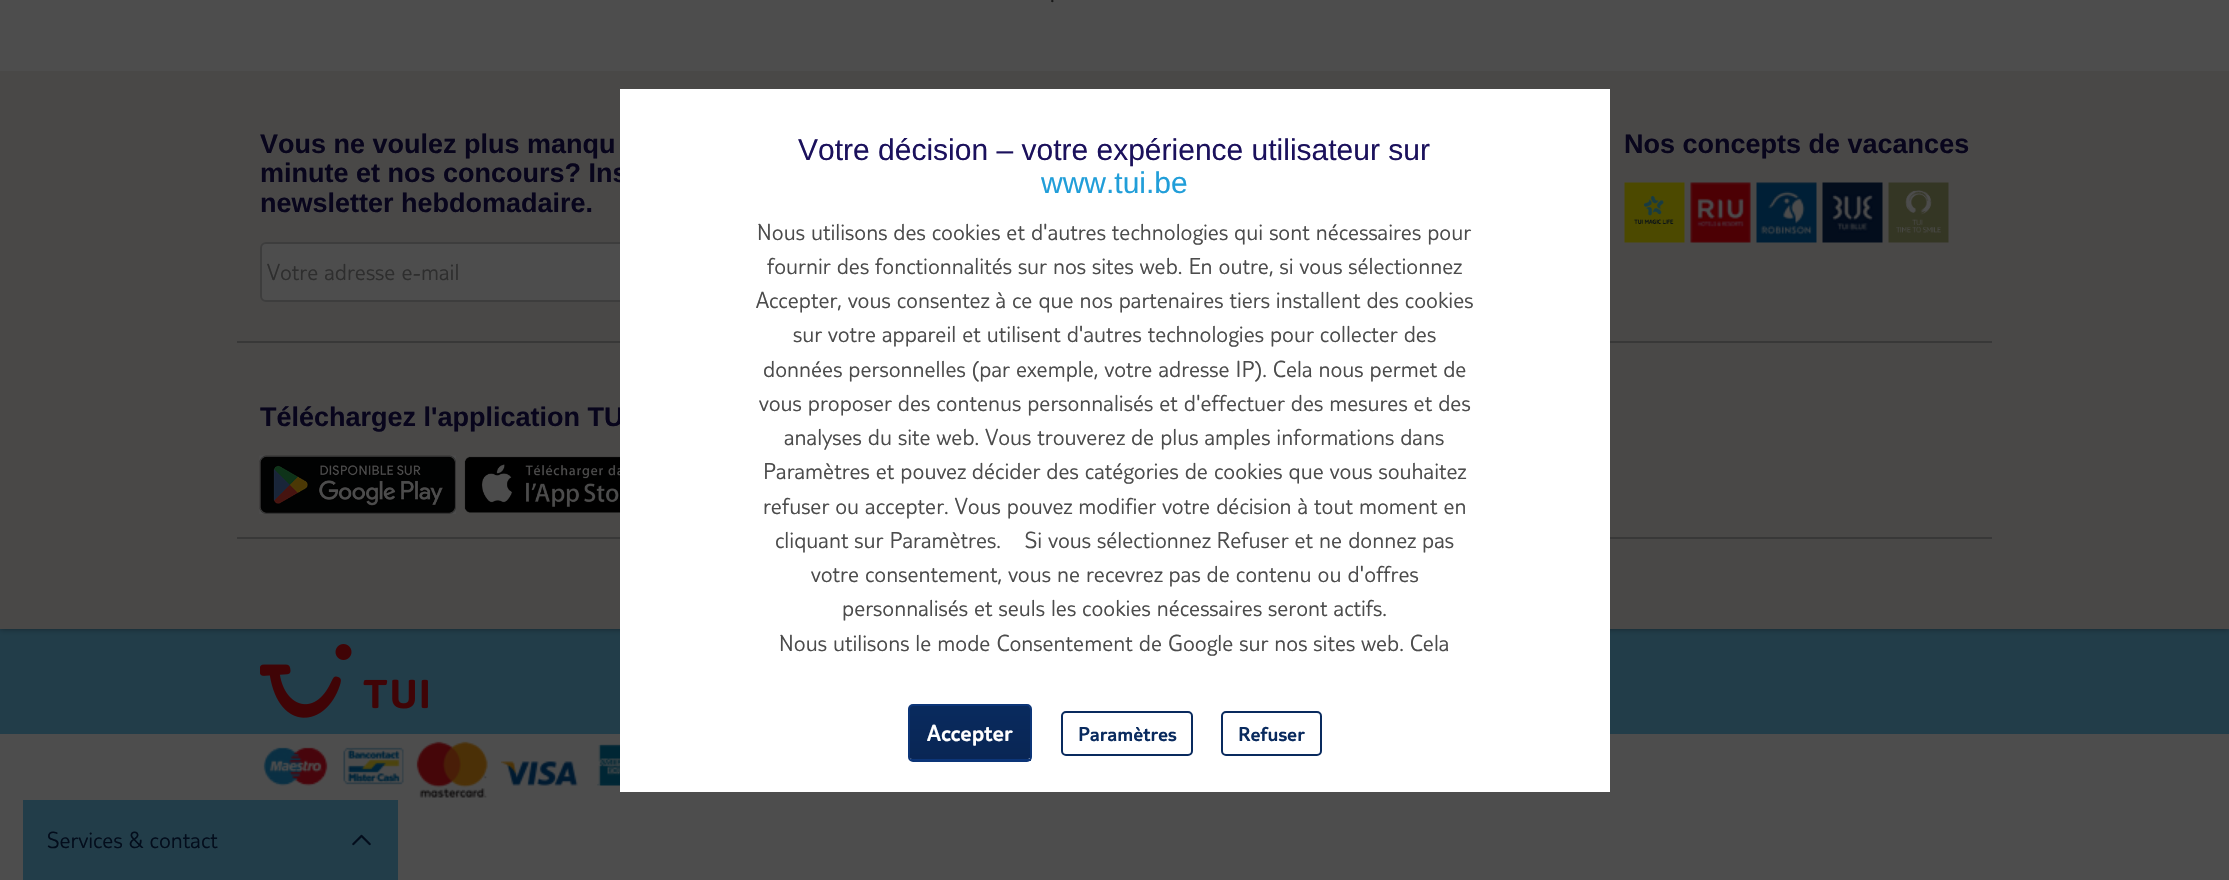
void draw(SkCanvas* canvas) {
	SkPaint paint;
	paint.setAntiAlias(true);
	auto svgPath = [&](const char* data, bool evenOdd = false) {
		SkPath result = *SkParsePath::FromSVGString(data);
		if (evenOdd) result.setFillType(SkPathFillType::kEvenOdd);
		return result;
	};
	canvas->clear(0xff4d4d4d);
	SkFont f1(fontMgr->matchFamilyStyle("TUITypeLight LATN", SkFontStyle(300, SkFontStyle::kNormal_Width, SkFontStyle::kUpright_Slant)), 24);
	f1.setSubpixel(true);
	paint.setColor(0xff171717);
	canvas->drawString(".", 1050, 2, f1, paint);
	paint.setColor(0xff494847);
	canvas->drawRect(SkRect::MakeXYWH(0, 71, 2229, 558), paint);
	SkFont f2(fontMgr->matchFamilyStyle("Liberation Sans", SkFontStyle::Bold()), 27);
	f2.setSubpixel(true);
	paint.setColor(0xff08051c);
	canvas->drawString("Vous ne voulez plus manqu", 260, 153, f2, paint);
	canvas->drawString("minute et nos concours? Ins", 260, 182, f2, paint);
	canvas->drawString("newsletter hebdomadaire.", 260, 212, f2, paint);
	paint.setColor(0xff4d4d4d);
	canvas->drawRoundRect(SkRect::MakeXYWH(261, 243, 523, 58), 5, 5, paint);
	paint.setStroke(true);
	paint.setStrokeWidth(2);
	paint.setColor(0xff3d3d3d);
	canvas->drawRoundRect(SkRect::MakeXYWH(261, 243, 523, 58), 5, 5, paint);
	paint.setStroke(false);
	paint.setColor(0xff2e2e2e);
	canvas->drawString("Votre adresse e-mail", 267, 280, f1, paint);
	paint.setColor(0xff08051c);
	canvas->drawString("Nos concepts de vacances", 1624, 153, f2, paint);
	canvas->drawImageRect(SkImages::DeferredFromEncodedData(SkData::MakeFromFileName("img1.png")), SkRect::MakeXYWH(1624, 182, 61, 61), SkSamplingOptions());
	canvas->drawImageRect(SkImages::DeferredFromEncodedData(SkData::MakeFromFileName("img2.png")), SkRect::MakeXYWH(1690, 182, 61, 61), SkSamplingOptions());
	canvas->drawImageRect(SkImages::DeferredFromEncodedData(SkData::MakeFromFileName("img3.png")), SkRect::MakeXYWH(1756, 182, 61, 61), SkSamplingOptions());
	canvas->drawImageRect(SkImages::DeferredFromEncodedData(SkData::MakeFromFileName("img4.png")), SkRect::MakeXYWH(1822, 182, 61, 61), SkSamplingOptions());
	canvas->drawImageRect(SkImages::DeferredFromEncodedData(SkData::MakeFromFileName("img5.png")), SkRect::MakeXYWH(1888, 182, 61, 61), SkSamplingOptions());
	paint.setColor(0xff383838);
	canvas->drawRect(SkRect::MakeXYWH(237, 341, 1755, 2), paint);
	canvas->drawRect(SkRect::MakeXYWH(237, 537, 1755, 2), paint);
	paint.setColor(0xff08051c);
	canvas->drawString("Téléchargez l'application TU", 260, 426, f2, paint);
	canvas->drawImageRect(SkImages::DeferredFromEncodedData(SkData::MakeFromFileName("img6.png")), SkRect::MakeXYWH(259, 455, 197, 59), SkSamplingOptions());
	canvas->drawImageRect(SkImages::DeferredFromEncodedData(SkData::MakeFromFileName("img7.png")), SkRect::MakeXYWH(464, 456, 156, 57), SkSamplingOptions());
	paint.setColor(0xff223d49);
	canvas->drawRect(SkRect::MakeXYWH(0, 629, 2229, 105), paint);
	canvas->save();
	canvas->clipRect(SkRect::MakeXYWH(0, 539, 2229, 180));
	canvas->clipPath(svgPath("M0 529H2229V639H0ZM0 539H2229V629H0Z", true), true);
	paint.setColor(0x66000000);
	paint.setMaskFilter(SkMaskFilter::MakeBlur(kNormal_SkBlurStyle, 3));
	canvas->drawRect(SkRect::MakeXYWH(0, 539, 2229, 90), paint);
	paint.setMaskFilter(nullptr);
	canvas->restore();
	canvas->drawImageRect(SkImages::DeferredFromEncodedData(SkData::MakeFromFileName("img8.png")), SkRect::MakeXYWH(260, 644, 168, 74), SkSamplingOptions());
	canvas->drawImageRect(SkImages::DeferredFromEncodedData(SkData::MakeFromFileName("img9.png")), SkRect::MakeXYWH(263, 747, 65, 39), SkSamplingOptions());
	canvas->drawImageRect(SkImages::DeferredFromEncodedData(SkData::MakeFromFileName("img10.png")), SkRect::MakeXYWH(343, 747, 61, 38), SkSamplingOptions());
	canvas->drawImageRect(SkImages::DeferredFromEncodedData(SkData::MakeFromFileName("img11.png")), SkRect::MakeXYWH(416, 741, 72, 57), SkSamplingOptions());
	canvas->drawImageRect(SkImages::DeferredFromEncodedData(SkData::MakeFromFileName("img12.png")), SkRect::MakeXYWH(501, 761, 77, 25), SkSamplingOptions());
	canvas->drawImageRect(SkImages::DeferredFromEncodedData(SkData::MakeFromFileName("img13.png")), SkRect::MakeXYWH(597, 744, 23, 42), SkSamplingOptions());
	paint.setColor(0xffffffff);
	canvas->drawRect(SkRect::MakeXYWH(620, 89, 990, 703), paint);
	SkFont f3(fontMgr->matchFamilyStyle("Liberation Sans", SkFontStyle::Normal()), 30);
	f3.setSubpixel(true);
	paint.setColor(0xff1b115c);
	canvas->drawString("Votre décision – votre expérience utilisateur sur", 798, 160, f3, paint);
	paint.setColor(0xff219ed9);
	canvas->drawString("www.tui.be", 1041, 193, f3, paint);
	paint.setColor(0xff4c4c4c);
	canvas->drawString("Nous utilisons des cookies et d'autres technologies qui sont nécessaires pour", 757, 240, f1, paint);
	canvas->drawString("fournir des fonctionnalités sur nos sites web. En outre, si vous sélectionnez", 767, 274, f1, paint);
	canvas->drawString("Accepter, vous consentez à ce que nos partenaires tiers installent des cookies", 756, 308, f1, paint);
	canvas->drawString("sur votre appareil et utilisent d'autres technologies pour collecter des", 793, 342, f1, paint);
	canvas->drawString("données personnelles (par exemple, votre adresse IP). Cela nous permet de", 763, 377, f1, paint);
	canvas->drawString("vous proposer des contenus personnalisés et d'effectuer des mesures et des", 759, 411, f1, paint);
	canvas->drawString("analyses du site web. Vous trouverez de plus amples informations dans", 784, 445, f1, paint);
	canvas->drawString("Paramètres et pouvez décider des catégories de cookies que vous souhaitez", 763, 479, f1, paint);
	canvas->drawString("refuser ou accepter. Vous pouvez modifier votre décision à tout moment en", 763, 514, f1, paint);
	canvas->drawString("cliquant sur Paramètres.    Si vous sélectionnez Refuser et ne donnez pas", 775, 548, f1, paint);
	canvas->drawString("votre consentement, vous ne recevrez pas de contenu ou d'offres", 811, 582, f1, paint);
	canvas->drawString("personnalisés et seuls les cookies nécessaires seront actifs.", 842, 616, f1, paint);
	canvas->drawString("Nous utilisons le mode Consentement de Google sur nos sites web. Cela", 779, 651, f1, paint);
	paint.setColor(0xff092a5e);
	canvas->drawPath(svgPath("M912 705H1028C1029 705 1030 706 1030 708V758C1030 758 1029 759 1028 759H912C910 759 909 758 909 758V708C909 706 910 705 912 705Z"), paint);
	{
		const SkColor colors[] = {0x00000000, 0x1a000000};
		const float stops[] = {0, 1};
		const SkPoint ends[] = {{970, 705}, {970, 759}};
		paint.setShader(SkGradientShader::MakeLinear(ends, colors, stops, 2, SkTileMode::kClamp));
		paint.setAlpha(255);
	}
	canvas->drawPath(svgPath("M912 705H1028C1029 705 1030 706 1030 708V758C1030 758 1029 759 1028 759H912C910 759 909 758 909 758V708C909 706 910 705 912 705Z"), paint);
	paint.setStroke(true);
	paint.setShader(nullptr);
	paint.setColor(0xff0c3578);
	canvas->drawRoundRect(SkRect::MakeXYWH(909, 705, 122, 56), 4, 4, paint);
	paint.setStroke(false);
	canvas->drawRect(SkRect::MakeXYWH(911, 759, 120, 2), paint);
	SkFont f4(fontMgr->matchFamilyStyle("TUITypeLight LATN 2", SkFontStyle(300, SkFontStyle::kNormal_Width, SkFontStyle::kUpright_Slant)), 24);
	f4.setSubpixel(true);
	paint.setColor(0xffffffff);
	canvas->drawString("Accepter", 927, 741, f4, paint);
	paint.setStroke(true);
	paint.setColor(0xff092a5e);
	canvas->drawRoundRect(SkRect::MakeXYWH(1062, 712, 130, 43), 4, 4, paint);
	SkFont f5(fontMgr->matchFamilyStyle("TUITypeLight LATN 2", SkFontStyle(300, SkFontStyle::kNormal_Width, SkFontStyle::kUpright_Slant)), 21);
	f5.setSubpixel(true);
	paint.setStroke(false);
	canvas->drawString("Paramètres", 1078, 741, f5, paint);
	paint.setStroke(true);
	canvas->drawRoundRect(SkRect::MakeXYWH(1222, 712, 99, 43), 4, 4, paint);
	paint.setStroke(false);
	canvas->drawString("Refuser", 1238, 741, f5, paint);
	paint.setColor(0xff223d49);
	canvas->drawRect(SkRect::MakeXYWH(23, 800, 375, 80), paint);
	paint.setColor(0xff030d1c);
	canvas->drawString("Services & contact", 47, 848, f1, paint);
	canvas->drawImageRect(SkImages::DeferredFromEncodedData(SkData::MakeFromFileName("img14.png")), SkRect::MakeXYWH(352, 834, 19, 12), SkSamplingOptions());
}
